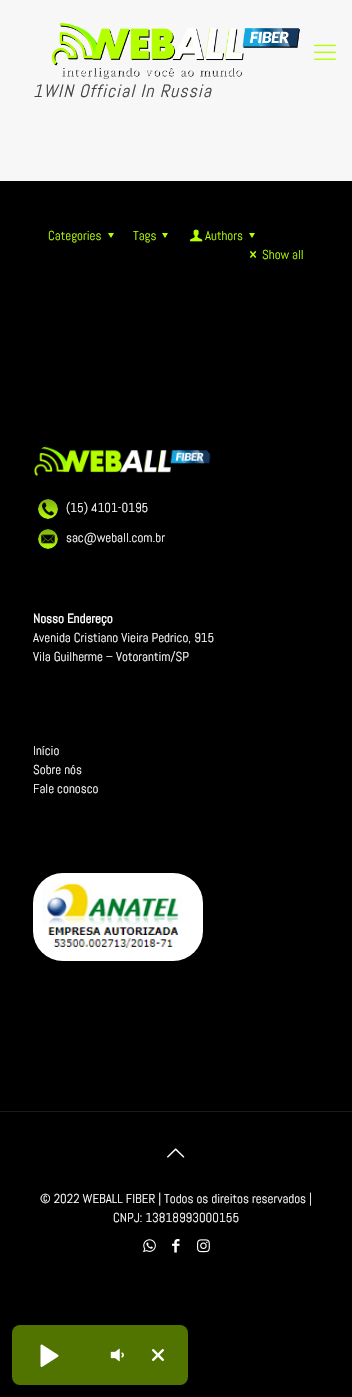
void draw(SkCanvas* canvas) {
	SkPaint paint;
	paint.setAntiAlias(true);
	auto spacedText = [&](const char* s, float x, float y, const SkFont& font, const SkPaint& ink, float letter, float word) {
		std::vector<SkGlyphID> glyphs(font.countText(s, strlen(s), SkTextEncoding::kUTF8));
		std::vector<float> xs(glyphs.size());
		font.textToGlyphs(s, strlen(s), SkTextEncoding::kUTF8, glyphs);
		font.getXPos(glyphs, xs, x);
		float extra = 0;
		for (size_t i = 0; i < glyphs.size(); i++) {
			xs[i] += extra;
			extra += letter + word * (glyphs[i] == font.unicharToGlyph(' '));
		}
		canvas->drawTextBlob(SkTextBlob::MakeFromPosHGlyphs(glyphs, xs, y, font), 0, 0, ink);
	};
	auto svgPath = [&](const char* data, bool evenOdd = false) {
		SkPath result = *SkParsePath::FromSVGString(data);
		if (evenOdd) result.setFillType(SkPathFillType::kEvenOdd);
		return result;
	};
	canvas->clear(0xff000000);
	paint.setColor(0xfff7f7f7);
	canvas->drawRect(SkRect::MakeXYWH(0, 0, 352, 181), paint);
	canvas->drawImageRect(SkImages::DeferredFromEncodedData(SkData::MakeFromFileName("img1.png")), SkRect::MakeXYWH(51, 23, 249, 56), SkSamplingOptions());
	canvas->drawImageRect(SkImages::DeferredFromEncodedData(SkData::MakeFromFileName("img2.png")), SkRect::MakeXYWH(314, 44, 22, 16), SkSamplingOptions());
	SkFont f1(fontMgr->matchFamilyStyle("Abel", SkFontStyle::Italic()), 18);
	f1.setSubpixel(true);
	paint.setColor(0xff444444);
	spacedText("1WIN Official In Russia", 33, 97, f1, paint, 1, 0);
	SkFont f2(fontMgr->matchFamilyStyle("Abel", SkFontStyle::Normal()), 13);
	f2.setSubpixel(true);
	paint.setColor(0xffb4ff00);
	canvas->drawString("Categories", 48, 240, f2, paint);
	canvas->drawPath(svgPath("M114 233L111 238L108 233Z"), paint);
	canvas->drawString("Tags", 133, 240, f2, paint);
	canvas->drawPath(svgPath("M168 233L165 238L162 233Z"), paint);
	canvas->drawImageRect(SkImages::DeferredFromEncodedData(SkData::MakeFromFileName("img3.png")), SkRect::MakeXYWH(190, 229, 13, 13), SkSamplingOptions());
	canvas->drawString("Authors", 205, 240, f2, paint);
	canvas->drawPath(svgPath("M255 233L252 238L249 233Z"), paint);
	canvas->drawImageRect(SkImages::DeferredFromEncodedData(SkData::MakeFromFileName("img4.png")), SkRect::MakeXYWH(250, 251, 7, 7), SkSamplingOptions());
	canvas->drawString("Show all", 262, 259, f2, paint);
	canvas->drawImageRect(SkImages::DeferredFromEncodedData(SkData::MakeFromFileName("img5.png")), SkRect::MakeXYWH(34, 446, 177, 31), SkSamplingOptions());
	canvas->drawImageRect(SkImages::DeferredFromEncodedData(SkData::MakeFromFileName("img6.png")), SkRect::MakeXYWH(38, 499, 20, 20), SkSamplingOptions());
	paint.setColor(0xffffffff);
	canvas->drawString("(15) 4101-0195", 66, 512, f2, paint);
	canvas->drawImageRect(SkImages::DeferredFromEncodedData(SkData::MakeFromFileName("img7.png")), SkRect::MakeXYWH(38, 529, 20, 20), SkSamplingOptions());
	canvas->drawString("sac@weball.com.br", 66, 542, f2, paint);
	SkFont f3(fontMgr->matchFamilyStyle("Abel", SkFontStyle::Bold()), 13);
	f3.setSubpixel(true);
	canvas->drawString("Nosso Endereço", 33, 623, f3, paint);
	canvas->drawString("Avenida Cristiano Vieira Pedrico, 915", 33, 642, f2, paint);
	canvas->drawString("Vila Guilherme – Votorantim/SP", 33, 661, f2, paint);
	canvas->drawString("Início", 33, 755, f2, paint);
	canvas->drawString("Sobre nós", 33, 774, f2, paint);
	canvas->drawString("Fale conosco", 33, 793, f2, paint);
	canvas->drawImageRect(SkImages::DeferredFromEncodedData(SkData::MakeFromFileName("img8.png")), SkRect::MakeXYWH(33, 873, 170, 88), SkSamplingOptions());
	paint.setColor(0xff1a1a1a);
	canvas->drawRect(SkRect::MakeXYWH(0, 1111, 352, 1), paint);
	canvas->drawImageRect(SkImages::DeferredFromEncodedData(SkData::MakeFromFileName("img9.png")), SkRect::MakeXYWH(167, 1148, 18, 10), SkSamplingOptions());
	paint.setColor(0xffffffff);
	canvas->drawString("© 2022 WEBALL FIBER | Todos os direitos reservados |", 40, 1203, f2, paint);
	canvas->drawString("CNPJ: 13818993000155", 113, 1222, f2, paint);
	canvas->drawImageRect(SkImages::DeferredFromEncodedData(SkData::MakeFromFileName("img10.png")), SkRect::MakeXYWH(143, 1239, 13, 14), SkSamplingOptions());
	canvas->drawImageRect(SkImages::DeferredFromEncodedData(SkData::MakeFromFileName("img11.png")), SkRect::MakeXYWH(172, 1239, 8, 14), SkSamplingOptions());
	canvas->drawImageRect(SkImages::DeferredFromEncodedData(SkData::MakeFromFileName("img12.png")), SkRect::MakeXYWH(197, 1239, 13, 14), SkSamplingOptions());
	paint.setColor(0xff517300);
	canvas->drawRoundRect(SkRect::MakeXYWH(12, 1325, 176, 60), 8, 8, paint);
	canvas->drawImageRect(SkImages::DeferredFromEncodedData(SkData::MakeFromFileName("img13.png")), SkRect::MakeXYWH(40, 1344, 19, 23), SkSamplingOptions());
	canvas->drawImageRect(SkImages::DeferredFromEncodedData(SkData::MakeFromFileName("img14.png")), SkRect::MakeXYWH(110, 1348, 14, 14), SkSamplingOptions());
	canvas->drawImageRect(SkImages::DeferredFromEncodedData(SkData::MakeFromFileName("img15.png")), SkRect::MakeXYWH(152, 1349, 12, 12), SkSamplingOptions());
}
